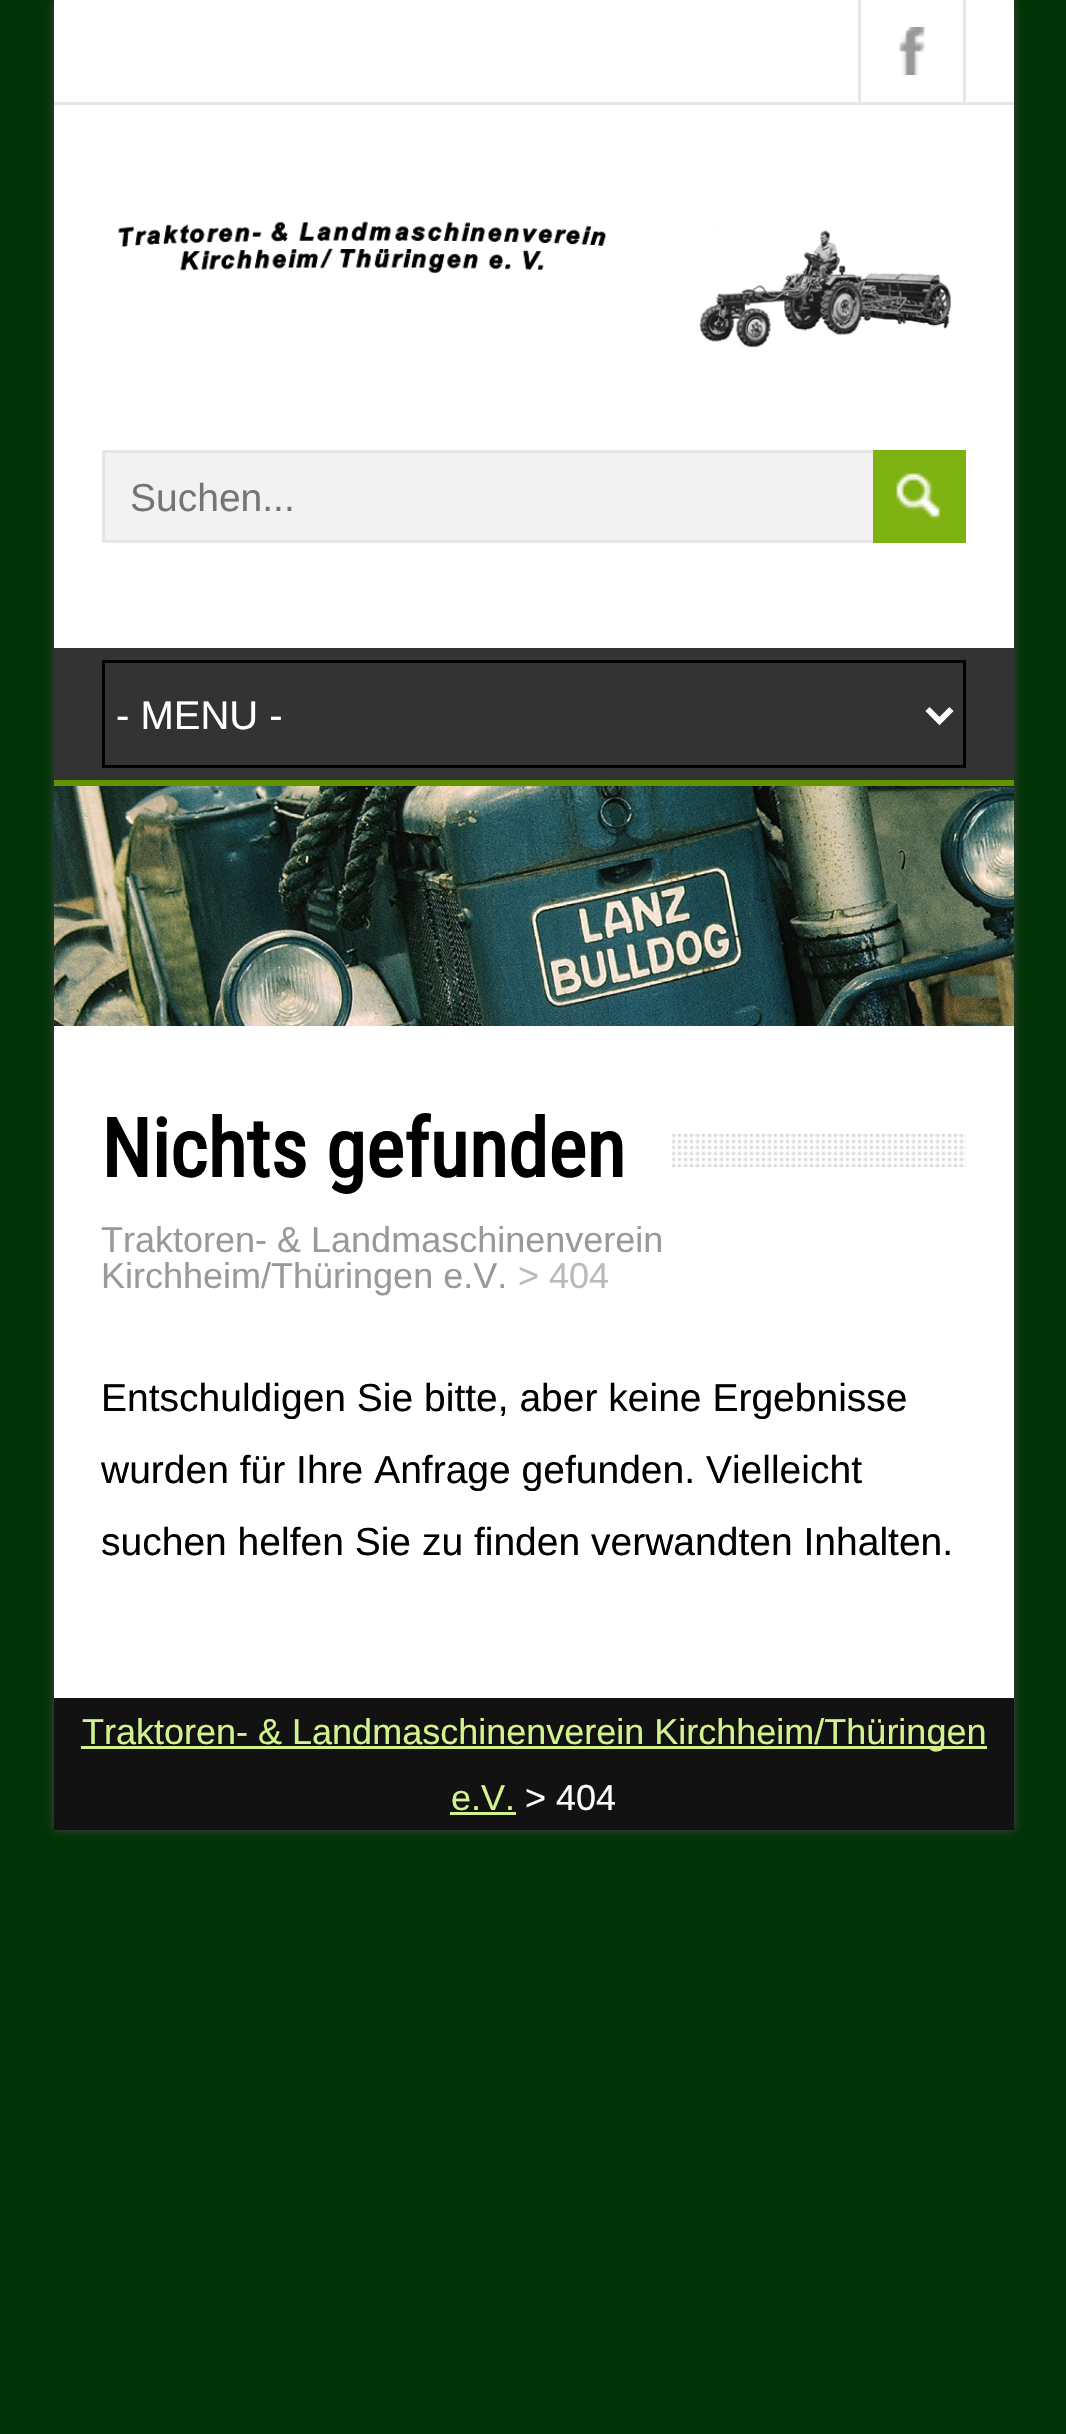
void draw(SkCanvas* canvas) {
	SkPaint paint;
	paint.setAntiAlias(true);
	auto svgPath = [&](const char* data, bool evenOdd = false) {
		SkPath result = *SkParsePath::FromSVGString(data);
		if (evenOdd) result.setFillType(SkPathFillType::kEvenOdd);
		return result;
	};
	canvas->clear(0xff003306);
	paint.setColor(0xff444444);
	paint.setMaskFilter(SkMaskFilter::MakeBlur(kNormal_SkBlurStyle, 4.5));
	canvas->drawRect(SkRect::MakeXYWH(54, 0, 960, 1830), paint);
	paint.setMaskFilter(nullptr);
	paint.setColor(0xffffffff);
	canvas->drawRect(SkRect::MakeXYWH(54, 0, 960, 1698), paint);
	paint.setColor(0xffe6e6e6);
	canvas->drawRect(SkRect::MakeXYWH(54, 102, 960, 3), paint);
	canvas->drawRect(SkRect::MakeXYWH(858, 0, 3, 102), paint);
	canvas->drawImageRect(SkImages::DeferredFromEncodedData(SkData::MakeFromFileName("img1.png")), SkRect::MakeXYWH(899, 27, 26, 48), SkSamplingOptions());
	canvas->drawRect(SkRect::MakeXYWH(963, 0, 3, 102), paint);
	canvas->drawImageRect(SkImages::DeferredFromEncodedData(SkData::MakeFromFileName("img2.png")), SkRect::MakeXYWH(118, 221, 833, 127), SkSamplingOptions());
	paint.setColor(0xfff2f2f2);
	canvas->drawRect(SkRect::MakeXYWH(105, 453, 768, 87), paint);
	paint.setStroke(true);
	paint.setStrokeWidth(3);
	paint.setColor(0xffe6e6e6);
	canvas->drawRect(SkRect::MakeXYWH(103.5, 451.5, 858, 90), paint);
	SkFont f1(fontMgr->matchFamilyStyle("Liberation Sans", SkFontStyle::Normal()), 39);
	f1.setSubpixel(true);
	paint.setStroke(false);
	paint.setColor(0xff757575);
	canvas->drawString("Suchen...", 130, 511, f1, paint);
	paint.setColor(0xff7eb112);
	canvas->drawRect(SkRect::MakeXYWH(873, 450, 93, 93), paint);
	canvas->drawImageRect(SkImages::DeferredFromEncodedData(SkData::MakeFromFileName("img3.png")), SkRect::MakeXYWH(896, 473, 46, 47), SkSamplingOptions());
	paint.setColor(0xff333333);
	canvas->drawRect(SkRect::MakeXYWH(54, 648, 960, 132), paint);
	paint.setColor(0xff649300);
	canvas->drawRect(SkRect::MakeXYWH(54, 780, 960, 6), paint);
	paint.setStroke(true);
	paint.setColor(0xff000000);
	canvas->drawRect(SkRect::MakeXYWH(103.5, 661.5, 861, 105), paint);
	paint.setStrokeWidth(6);
	paint.setColor(0xffffffff);
	canvas->drawPath(svgPath("M927.5 709L939.5 721L951.5 709"), paint);
	SkFont f2(fontMgr->matchFamilyStyle("Liberation Sans", SkFontStyle::Normal()), 40);
	f2.setSubpixel(true);
	paint.setStroke(false);
	canvas->drawString("- MENU -", 116, 729, f2, paint);
	canvas->drawImageRect(SkImages::DeferredFromEncodedData(SkData::MakeFromFileName("img4.png")), SkRect::MakeXYWH(54, 786, 960, 240), SkSamplingOptions());
	canvas->drawImageRect(SkImages::DeferredFromEncodedData(SkData::MakeFromFileName("img5.png")), SkRect::MakeXYWH(672, 1134, 294, 33), SkSamplingOptions());
	SkFont f3(fontMgr->matchFamilyStyle("Roboto Condensed", SkFontStyle::Bold()), 81);
	f3.setSubpixel(true);
	paint.setColor(0xff000000);
	canvas->drawString("Nichts gefunden", 101, 1177, f3, paint);
	SkFont f4(fontMgr->matchFamilyStyle("Liberation Sans", SkFontStyle::Normal()), 36);
	f4.setSubpixel(true);
	paint.setColor(0xff999999);
	canvas->drawString("Traktoren- & Landmaschinenverein", 101, 1252, f4, paint);
	canvas->drawString("Kirchheim/Thüringen e.V.", 101, 1288, f4, paint);
	paint.setColor(0xffbbbbbb);
	canvas->drawString("> 404", 518, 1288, f4, paint);
	paint.setColor(0xff000000);
	canvas->drawString("Entschuldigen Sie bitte, aber keine Ergebnisse", 101, 1411, f1, paint);
	canvas->drawString("wurden für Ihre Anfrage gefunden. Vielleicht", 101, 1483, f1, paint);
	canvas->drawString("suchen helfen Sie zu finden verwandten Inhalten.", 101, 1555, f1, paint);
	paint.setColor(0xff121212);
	canvas->drawRect(SkRect::MakeXYWH(54, 1698, 960, 132), paint);
	paint.setColor(0xffd3f38f);
	canvas->drawRect(SkRect::MakeXYWH(81, 1746, 906, 3), paint);
	canvas->drawString("Traktoren- & Landmaschinenverein Kirchheim/Thüringen", 82, 1744, f4, paint);
	canvas->drawString("e.V.", 451, 1810, f4, paint);
	canvas->drawRect(SkRect::MakeXYWH(450, 1812, 66, 3), paint);
	paint.setColor(0xffffffff);
	canvas->drawString("> 404", 525, 1810, f4, paint);
}
